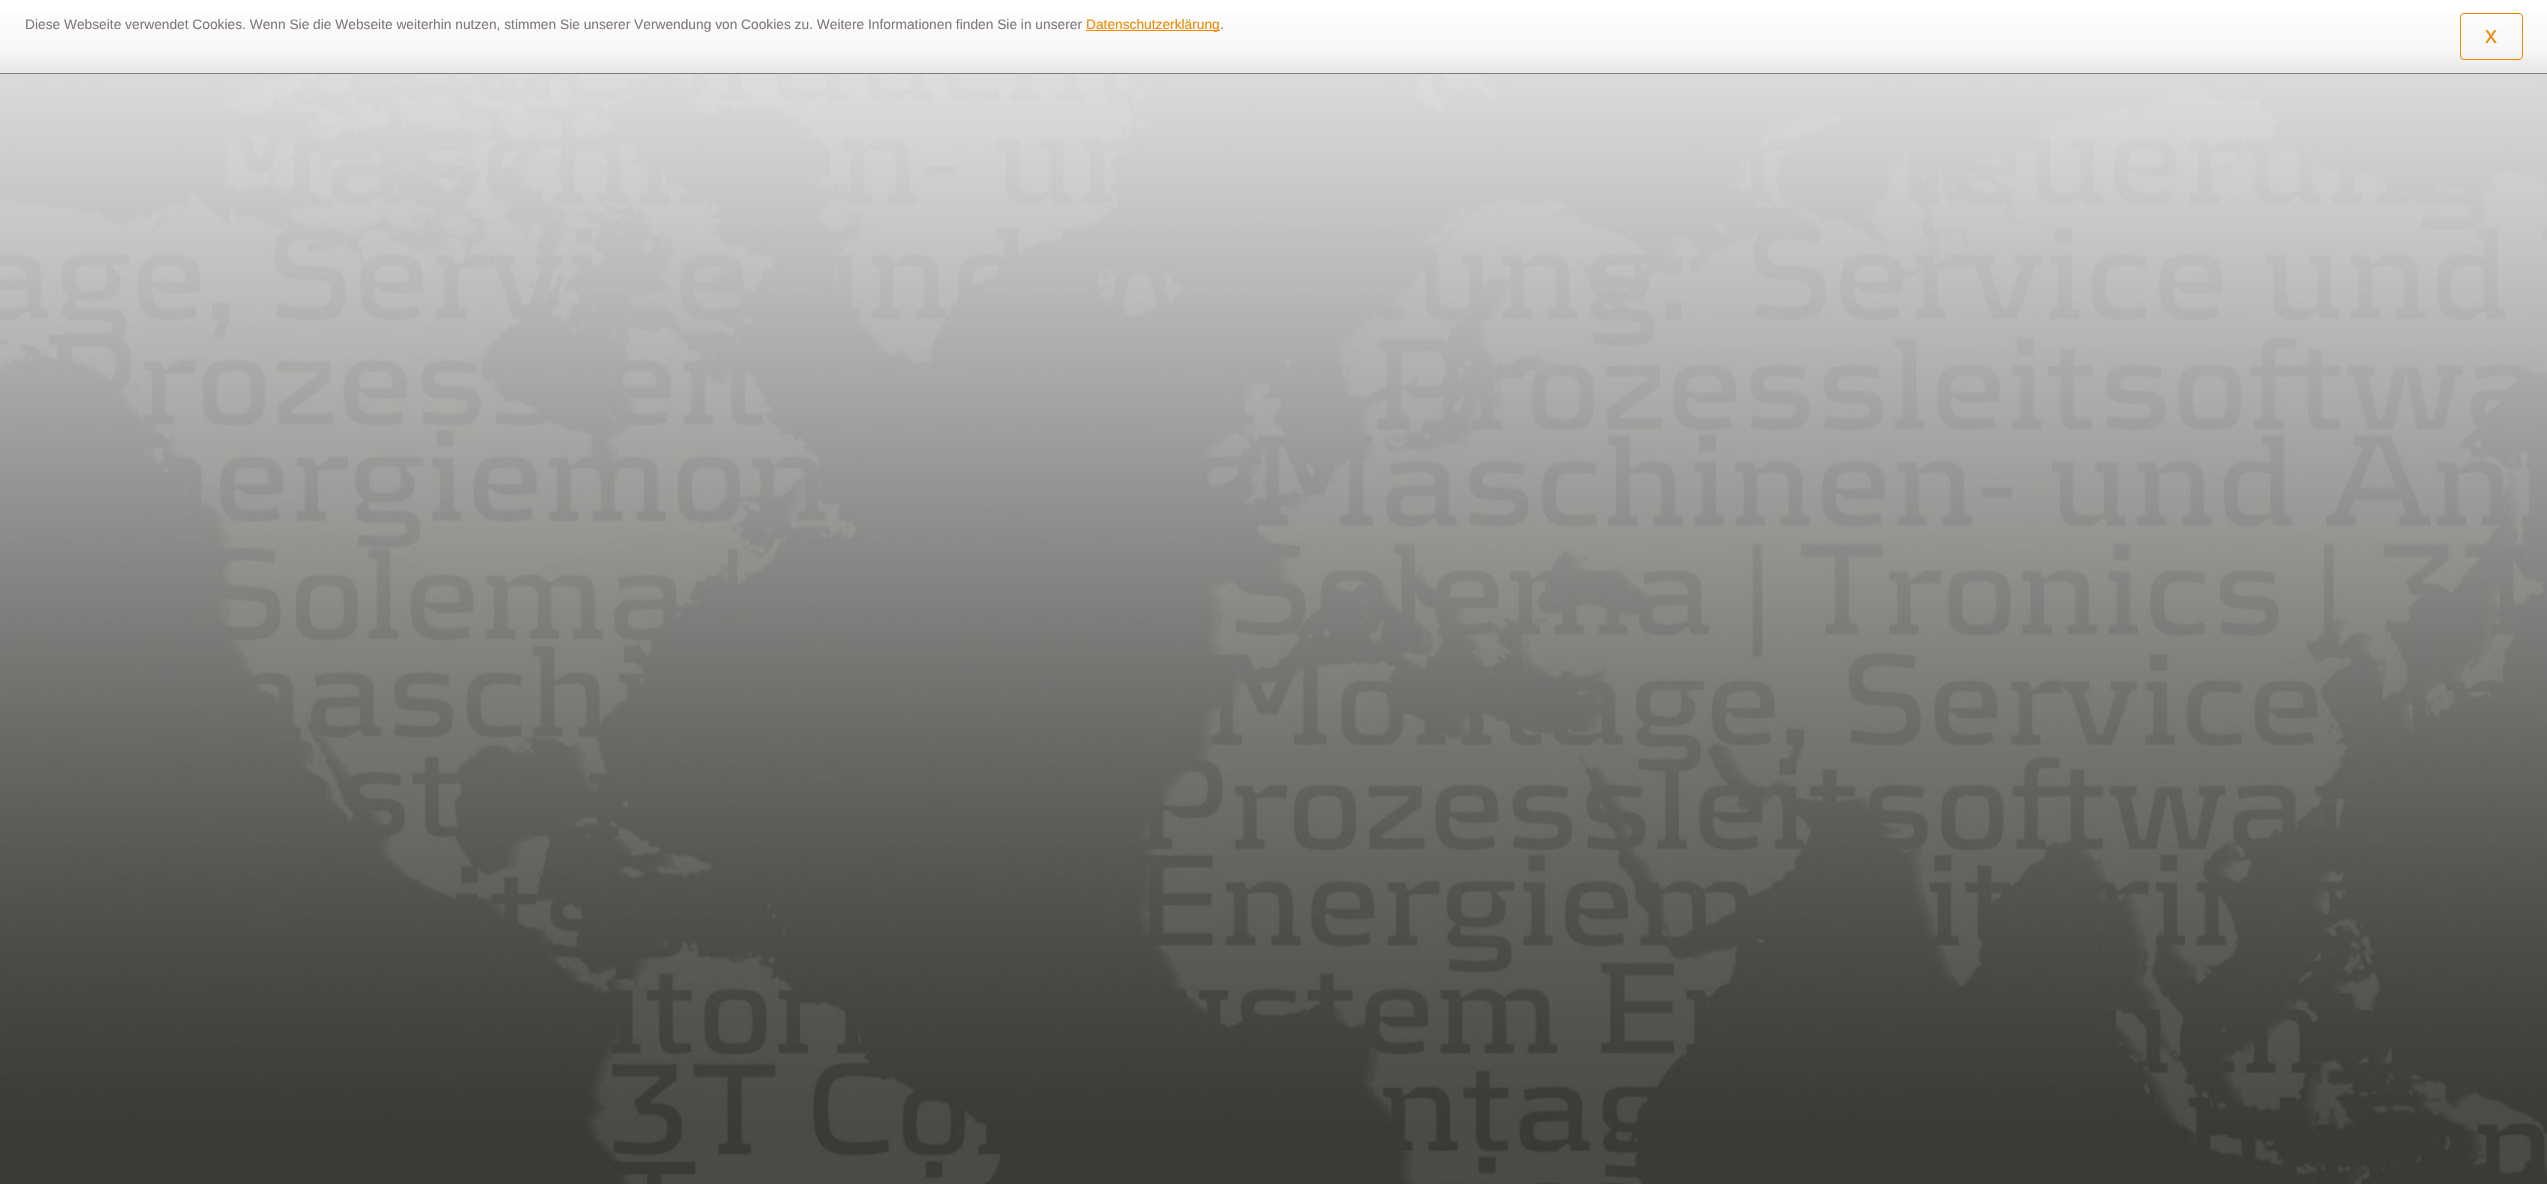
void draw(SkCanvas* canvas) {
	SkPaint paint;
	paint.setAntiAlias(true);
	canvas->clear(0xffffffff);
	canvas->drawImageRect(SkImages::DeferredFromEncodedData(SkData::MakeFromFileName("img1.png")), SkRect::MakeXYWH(0, 74, 2547, 1110), SkSamplingOptions());
	{
		const SkColor colors[] = {0xfffefefe, 0xfff8f8f8, 0xffe6e6e6};
		const float stops[] = {0, 0.68, 1};
		const SkPoint ends[] = {{1274, 0}, {1274, 73}};
		paint.setShader(SkGradientShader::MakeLinear(ends, colors, stops, 3, SkTileMode::kClamp));
		paint.setAlpha(255);
	}
	canvas->drawRect(SkRect::MakeXYWH(0, 12, 2547, 61), paint);
	paint.setShader(nullptr);
	paint.setColor(0xff808080);
	canvas->drawRect(SkRect::MakeXYWH(0, 73, 2547, 1), paint);
	SkFont f1(fontMgr->matchFamilyStyle("Liberation Sans", SkFontStyle::Normal()), 13.75);
	f1.setSubpixel(true);
	paint.setColor(0xff82787d);
	canvas->drawString("Diese Webseite verwendet Cookies. Wenn Sie die Webseite weiterhin nutzen, stimmen Sie unserer Verwendung von Cookies zu. Weitere Informationen finden Sie in unserer", 25, 29, f1, paint);
	paint.setColor(0xffef8900);
	canvas->drawRect(SkRect::MakeXYWH(1086, 30, 134, 1), paint);
	canvas->drawString("Datenschutzerklärung", 1086, 29, f1, paint);
	paint.setColor(0xff82787d);
	canvas->drawString(".", 1220, 29, f1, paint);
	paint.setStroke(true);
	paint.setStrokeWidth(1);
	paint.setColor(0xffef8900);
	canvas->drawRoundRect(SkRect::MakeXYWH(2460.5, 13.5, 62, 46), 3.5, 3.5, paint);
	SkFont f2(fontMgr->matchFamilyStyle("Liberation Sans", SkFontStyle::Normal()), 24);
	f2.setSubpixel(true);
	paint.setStroke(false);
	canvas->drawString("x", 2485, 43, f2, paint);
}
